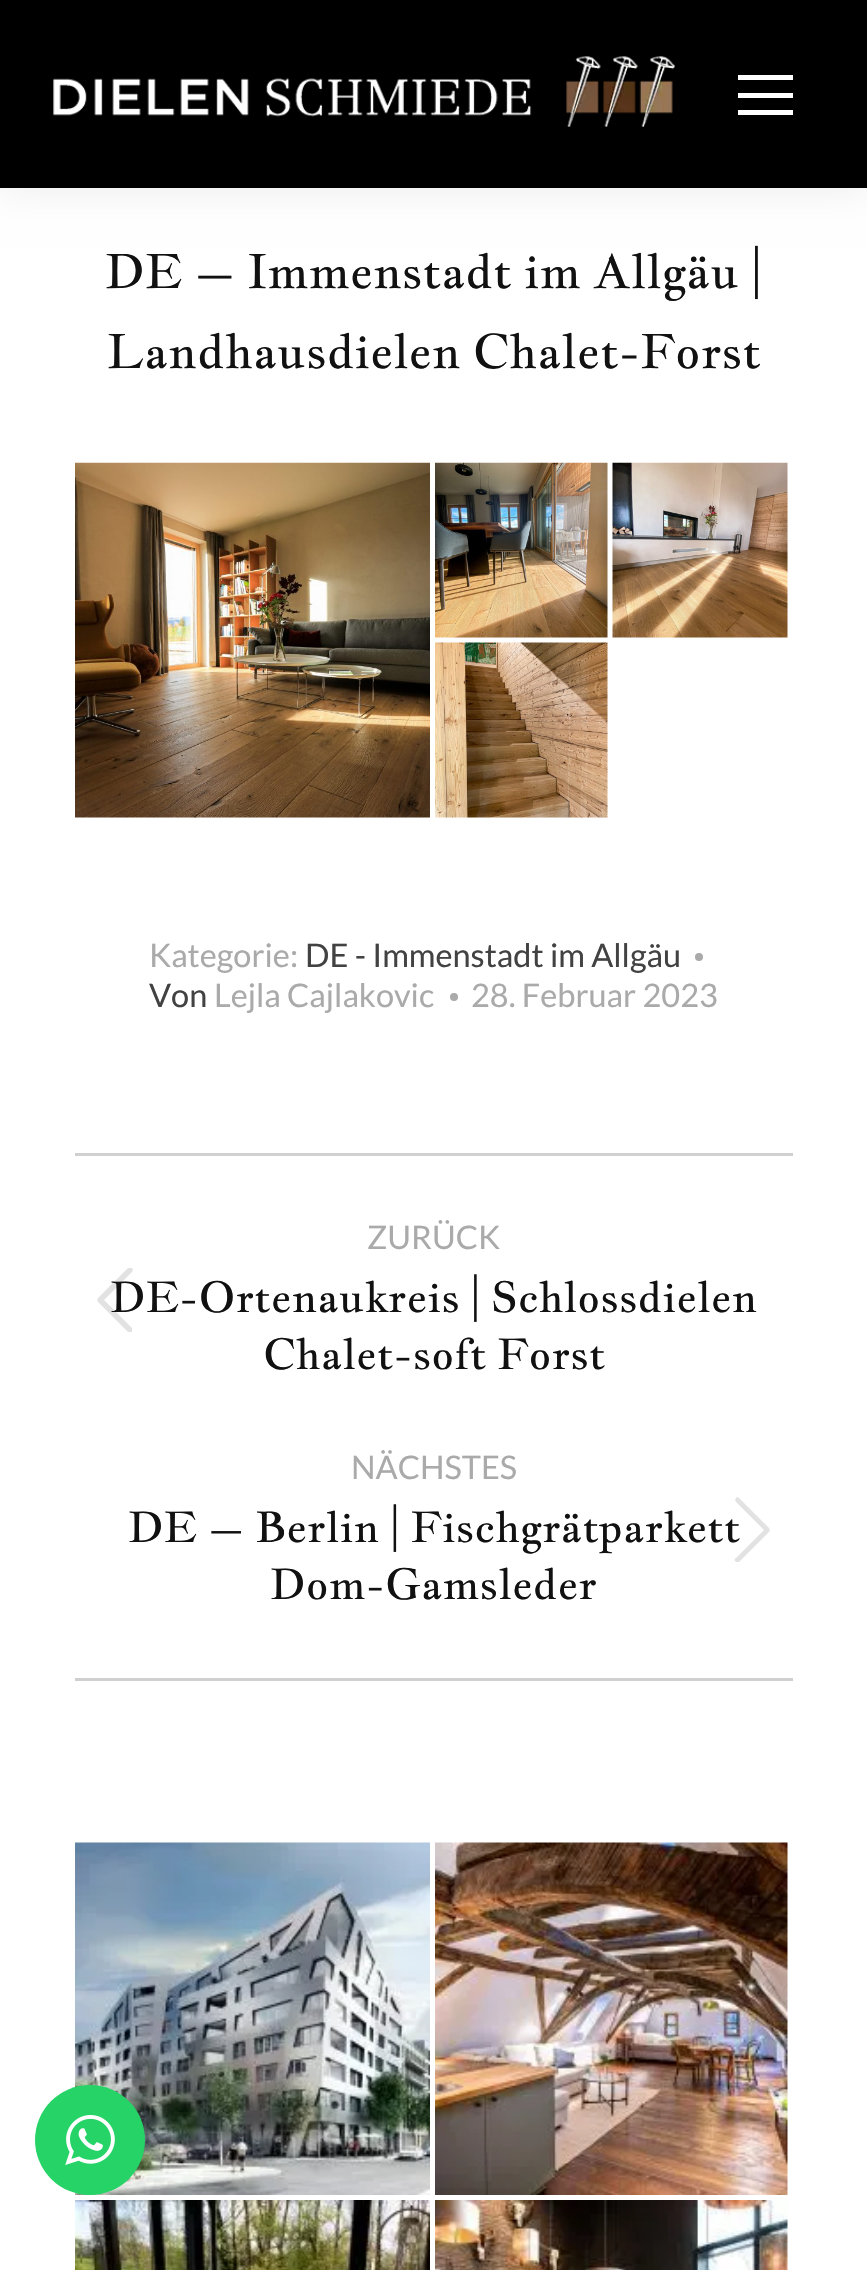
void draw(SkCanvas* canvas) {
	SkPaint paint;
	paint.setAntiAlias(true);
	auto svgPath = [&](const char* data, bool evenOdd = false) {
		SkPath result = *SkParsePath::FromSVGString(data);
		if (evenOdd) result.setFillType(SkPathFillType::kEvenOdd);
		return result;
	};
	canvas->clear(0xffffffff);
	paint.setColor(0x12000000);
	paint.setMaskFilter(SkMaskFilter::MakeBlur(kNormal_SkBlurStyle, 19));
	canvas->drawRect(SkRect::MakeXYWH(-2, -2, 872, 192), paint);
	paint.setMaskFilter(nullptr);
	paint.setColor(0xff000000);
	canvas->drawRect(SkRect::MakeXYWH(0, 0, 867, 188), paint);
	canvas->drawImageRect(SkImages::DeferredFromEncodedData(SkData::MakeFromFileName("img1.png")), SkRect::MakeXYWH(53, 56, 622, 71), SkSamplingOptions());
	paint.setColor(0xffffffff);
	canvas->drawRect(SkRect::MakeXYWH(738, 75, 55, 5), paint);
	canvas->drawRect(SkRect::MakeXYWH(738, 93, 55, 5), paint);
	canvas->drawRect(SkRect::MakeXYWH(738, 110, 55, 5), paint);
	SkFont f1(fontMgr->matchFamilyStyle("Jacques Francois", SkFontStyle::Normal()), 47.5);
	f1.setSubpixel(true);
	paint.setColor(0xff111111);
	canvas->drawString("DE – Immenstadt im Allgäu |", 105, 288, f1, paint);
	canvas->drawString("Landhausdielen Chalet-Forst", 107, 368, f1, paint);
	canvas->drawImageRect(SkImages::DeferredFromEncodedData(SkData::MakeFromFileName("img2.png")), SkRect::MakeXYWH(75, 462, 355, 356), SkSamplingOptions());
	canvas->drawImageRect(SkImages::DeferredFromEncodedData(SkData::MakeFromFileName("img3.png")), SkRect::MakeXYWH(435, 462, 173, 176), SkSamplingOptions());
	canvas->drawImageRect(SkImages::DeferredFromEncodedData(SkData::MakeFromFileName("img4.png")), SkRect::MakeXYWH(612, 462, 176, 176), SkSamplingOptions());
	canvas->drawImageRect(SkImages::DeferredFromEncodedData(SkData::MakeFromFileName("img5.png")), SkRect::MakeXYWH(435, 642, 173, 176), SkSamplingOptions());
	SkFont f2(fontMgr->matchFamilyStyle("Lato", SkFontStyle::Normal()), 32.5);
	f2.setSubpixel(true);
	paint.setColor(0xffaaaaaa);
	canvas->drawString("Kategorie:", 149, 967, f2, paint);
	paint.setColor(0xff424242);
	canvas->drawString("DE - Immenstadt im Allgäu", 305, 967, f2, paint);
	paint.setColor(0xffaaaaaa);
	canvas->drawCircle(699, 957, 4, paint);
	paint.setColor(0xff424242);
	canvas->drawString("Von", 149, 1007, f2, paint);
	paint.setColor(0xffaaaaaa);
	canvas->drawString("Lejla Cajlakovic", 214, 1007, f2, paint);
	canvas->drawCircle(454, 997, 4, paint);
	canvas->drawString("28. Februar 2023", 471, 1007, f2, paint);
	paint.setColor(0xffd0d0d0);
	canvas->drawRect(SkRect::MakeXYWH(75, 1153, 718, 3), paint);
	canvas->drawRect(SkRect::MakeXYWH(75, 1678, 718, 3), paint);
	paint.setColor(0xffaaaaaa);
	canvas->drawString("ZURÜCK", 367, 1249, f2, paint);
	paint.setColor(0x1f111111);
	canvas->drawPath(svgPath("M132 1268C133 1269 133 1270 132 1272L104 1300L132 1328C132 1329 132 1330 132 1332C130 1332 129 1332 128 1332L98 1302C97 1300 97 1299 98 1298L128 1268C129 1268 131 1268 132 1268Z"), paint);
	SkFont f3(fontMgr->matchFamilyStyle("Jacques Francois", SkFontStyle::Normal()), 42.5);
	f3.setSubpixel(true);
	paint.setColor(0xff111111);
	canvas->drawString("DE-Ortenaukreis | Schlossdielen", 110, 1312, f3, paint);
	canvas->drawString("Chalet-soft Forst", 263, 1369, f3, paint);
	paint.setColor(0xffaaaaaa);
	canvas->drawString("NÄCHSTES", 351, 1479, f2, paint);
	paint.setColor(0xff111111);
	canvas->drawString("DE – Berlin | Fischgrätparkett", 128, 1542, f3, paint);
	canvas->drawString("Dom-Gamsleder", 270, 1599, f3, paint);
	paint.setColor(0xffe2e2e2);
	canvas->drawPath(svgPath("M736 1498C736 1497 738 1497 739 1498L769 1528C770 1529 770 1530 769 1532L739 1562C738 1562 736 1562 736 1562C734 1560 734 1559 736 1558L764 1530L736 1502C735 1501 735 1499 736 1498Z"), paint);
	canvas->drawImageRect(SkImages::DeferredFromEncodedData(SkData::MakeFromFileName("img6.png")), SkRect::MakeXYWH(75, 1842, 355, 353), SkSamplingOptions());
	canvas->drawImageRect(SkImages::DeferredFromEncodedData(SkData::MakeFromFileName("img7.png")), SkRect::MakeXYWH(435, 1842, 353, 353), SkSamplingOptions());
	canvas->drawImageRect(SkImages::DeferredFromEncodedData(SkData::MakeFromFileName("img8.png")), SkRect::MakeXYWH(75, 2200, 355, 70), SkSamplingOptions());
	canvas->drawImageRect(SkImages::DeferredFromEncodedData(SkData::MakeFromFileName("img9.png")), SkRect::MakeXYWH(435, 2200, 353, 70), SkSamplingOptions());
	paint.setColor(0xff25d366);
	canvas->drawCircle(90, 2140, 55, paint);
	canvas->drawImageRect(SkImages::DeferredFromEncodedData(SkData::MakeFromFileName("img10.png")), SkRect::MakeXYWH(65, 2115, 50, 50), SkSamplingOptions());
}
